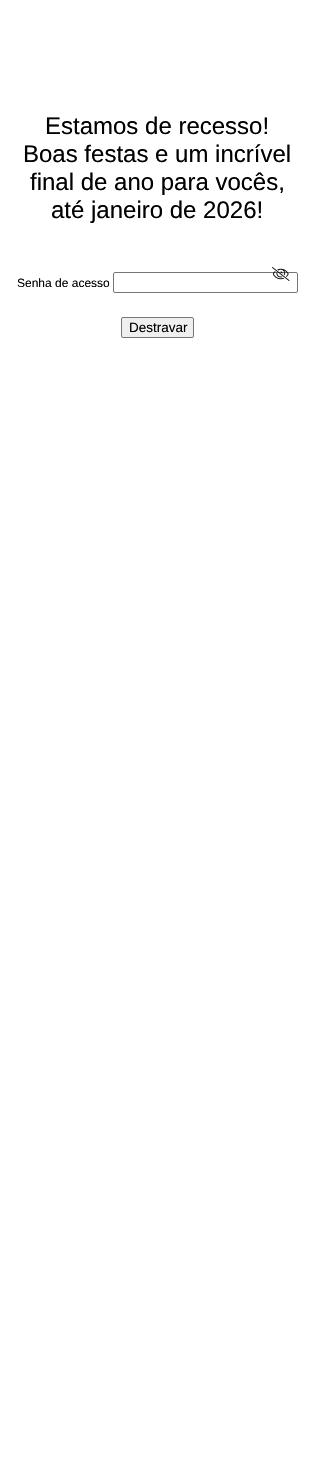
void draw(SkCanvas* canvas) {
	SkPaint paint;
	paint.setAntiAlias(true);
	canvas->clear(0xffffffff);
	SkFont f1(fontMgr->matchFamilyStyle("Liberation Sans", SkFontStyle::Normal()), 24);
	f1.setSubpixel(true);
	paint.setColor(0xff000000);
	canvas->drawString("Estamos de recesso!", 45, 134, f1, paint);
	canvas->drawString("Boas festas e um incrível", 23, 162, f1, paint);
	canvas->drawString("final de ano para vocês,", 30, 190, f1, paint);
	canvas->drawString("até janeiro de 2026!", 51, 218, f1, paint);
	paint.setStroke(true);
	paint.setStrokeWidth(1);
	paint.setColor(0xff767676);
	canvas->drawRoundRect(SkRect::MakeXYWH(113.5, 272.5, 184, 20), 1.5, 1.5, paint);
	canvas->drawImageRect(SkImages::DeferredFromEncodedData(SkData::MakeFromFileName("img1.png")), SkRect::MakeXYWH(272, 267, 18, 14), SkSamplingOptions());
	SkFont f2(fontMgr->matchFamilyStyle("Liberation Sans", SkFontStyle::Normal()), 12);
	f2.setSubpixel(true);
	paint.setStroke(false);
	paint.setColor(0xff000000);
	canvas->drawString("Senha de acesso", 17, 287, f2, paint);
	paint.setColor(0xffefefef);
	canvas->drawRoundRect(SkRect::MakeXYWH(121.5, 317.5, 72, 20), 1.5, 1.5, paint);
	paint.setStroke(true);
	paint.setColor(0xff767676);
	canvas->drawRoundRect(SkRect::MakeXYWH(121.5, 317.5, 72, 20), 1.5, 1.5, paint);
	SkFont f3(fontMgr->matchFamilyStyle("Liberation Sans", SkFontStyle::Normal()), 13.5);
	f3.setSubpixel(true);
	paint.setStroke(false);
	paint.setColor(0xff000000);
	canvas->drawString("Destravar", 129, 332, f3, paint);
}
